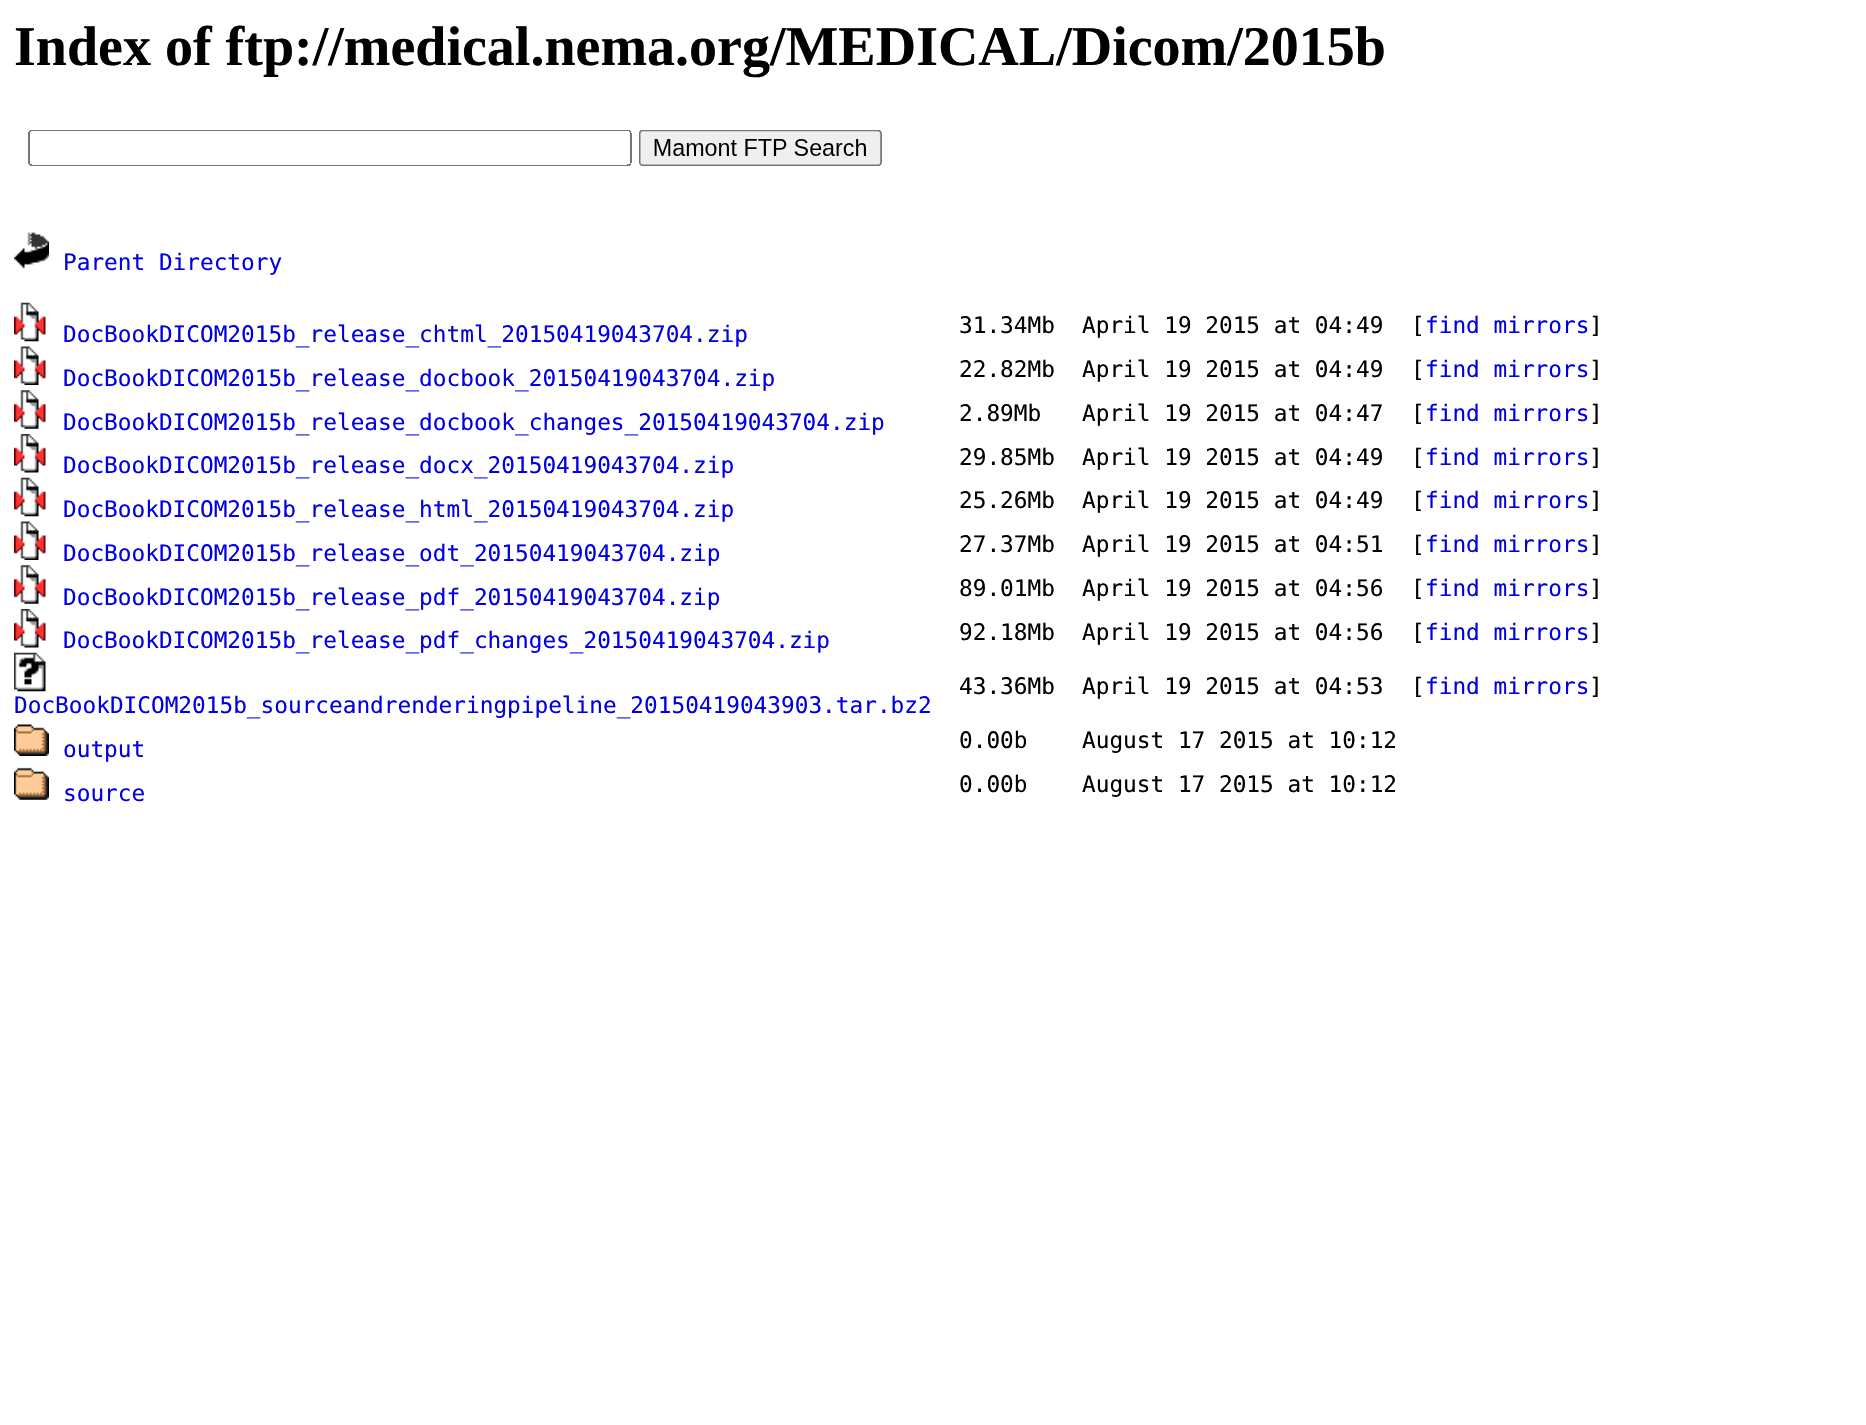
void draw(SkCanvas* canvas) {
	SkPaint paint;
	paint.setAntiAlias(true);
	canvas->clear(0xffffffff);
	SkFont f1(fontMgr->matchFamilyStyle("Liberation Serif", SkFontStyle::Bold()), 56);
	f1.setSubpixel(true);
	paint.setColor(0xff000000);
	canvas->drawString("Index of ftp://medical.nema.org/MEDICAL/Dicom/2015b", 14, 65, f1, paint);
	canvas->drawImageRect(SkImages::DeferredFromEncodedData(SkData::MakeFromFileName("img1.png")), SkRect::MakeXYWH(28, 130, 854, 36), SkSamplingOptions());
	canvas->drawImageRect(SkImages::DeferredFromEncodedData(SkData::MakeFromFileName("img2.png")), SkRect::MakeXYWH(14, 232, 35, 37), SkSamplingOptions());
	SkFont f2(fontMgr->matchFamilyStyle("DejaVu Sans Mono", SkFontStyle::Normal()), 22.75);
	f2.setSubpixel(true);
	paint.setColor(0xff0000e2);
	canvas->drawString("Parent Directory", 63, 270, f2, paint);
	canvas->drawImageRect(SkImages::DeferredFromEncodedData(SkData::MakeFromFileName("img3.png")), SkRect::MakeXYWH(14, 302, 32, 40), SkSamplingOptions());
	canvas->drawString("DocBookDICOM2015b_release_chtml_20150419043704.zip", 63, 342, f2, paint);
	paint.setColor(0xff000000);
	canvas->drawString("31.34Mb", 959, 333, f2, paint);
	canvas->drawString("April 19 2015 at 04:49", 1082, 333, f2, paint);
	canvas->drawString("[", 1411, 333, f2, paint);
	paint.setColor(0xff0000e2);
	canvas->drawString("find mirrors", 1425, 333, f2, paint);
	paint.setColor(0xff000000);
	canvas->drawString("]", 1589, 333, f2, paint);
	canvas->drawImageRect(SkImages::DeferredFromEncodedData(SkData::MakeFromFileName("img4.png")), SkRect::MakeXYWH(14, 346, 32, 39), SkSamplingOptions());
	paint.setColor(0xff0000e2);
	canvas->drawString("DocBookDICOM2015b_release_docbook_20150419043704.zip", 63, 386, f2, paint);
	paint.setColor(0xff000000);
	canvas->drawString("22.82Mb", 959, 377, f2, paint);
	canvas->drawString("April 19 2015 at 04:49", 1082, 377, f2, paint);
	canvas->drawString("[", 1411, 377, f2, paint);
	paint.setColor(0xff0000e2);
	canvas->drawString("find mirrors", 1425, 377, f2, paint);
	paint.setColor(0xff000000);
	canvas->drawString("]", 1589, 377, f2, paint);
	canvas->drawImageRect(SkImages::DeferredFromEncodedData(SkData::MakeFromFileName("img5.png")), SkRect::MakeXYWH(14, 390, 32, 39), SkSamplingOptions());
	paint.setColor(0xff0000e2);
	canvas->drawString("DocBookDICOM2015b_release_docbook_changes_20150419043704.zip", 63, 430, f2, paint);
	paint.setColor(0xff000000);
	canvas->drawString("2.89Mb", 959, 421, f2, paint);
	canvas->drawString("April 19 2015 at 04:47", 1082, 421, f2, paint);
	canvas->drawString("[", 1411, 421, f2, paint);
	paint.setColor(0xff0000e2);
	canvas->drawString("find mirrors", 1425, 421, f2, paint);
	paint.setColor(0xff000000);
	canvas->drawString("]", 1589, 421, f2, paint);
	canvas->drawImageRect(SkImages::DeferredFromEncodedData(SkData::MakeFromFileName("img6.png")), SkRect::MakeXYWH(14, 434, 32, 39), SkSamplingOptions());
	paint.setColor(0xff0000e2);
	canvas->drawString("DocBookDICOM2015b_release_docx_20150419043704.zip", 63, 473, f2, paint);
	paint.setColor(0xff000000);
	canvas->drawString("29.85Mb", 959, 465, f2, paint);
	canvas->drawString("April 19 2015 at 04:49", 1082, 465, f2, paint);
	canvas->drawString("[", 1411, 465, f2, paint);
	paint.setColor(0xff0000e2);
	canvas->drawString("find mirrors", 1425, 465, f2, paint);
	paint.setColor(0xff000000);
	canvas->drawString("]", 1589, 465, f2, paint);
	canvas->drawImageRect(SkImages::DeferredFromEncodedData(SkData::MakeFromFileName("img3.png")), SkRect::MakeXYWH(14, 477, 32, 40), SkSamplingOptions());
	paint.setColor(0xff0000e2);
	canvas->drawString("DocBookDICOM2015b_release_html_20150419043704.zip", 63, 517, f2, paint);
	paint.setColor(0xff000000);
	canvas->drawString("25.26Mb", 959, 508, f2, paint);
	canvas->drawString("April 19 2015 at 04:49", 1082, 508, f2, paint);
	canvas->drawString("[", 1411, 508, f2, paint);
	paint.setColor(0xff0000e2);
	canvas->drawString("find mirrors", 1425, 508, f2, paint);
	paint.setColor(0xff000000);
	canvas->drawString("]", 1589, 508, f2, paint);
	canvas->drawImageRect(SkImages::DeferredFromEncodedData(SkData::MakeFromFileName("img4.png")), SkRect::MakeXYWH(14, 521, 32, 39), SkSamplingOptions());
	paint.setColor(0xff0000e2);
	canvas->drawString("DocBookDICOM2015b_release_odt_20150419043704.zip", 63, 561, f2, paint);
	paint.setColor(0xff000000);
	canvas->drawString("27.37Mb", 959, 552, f2, paint);
	canvas->drawString("April 19 2015 at 04:51", 1082, 552, f2, paint);
	canvas->drawString("[", 1411, 552, f2, paint);
	paint.setColor(0xff0000e2);
	canvas->drawString("find mirrors", 1425, 552, f2, paint);
	paint.setColor(0xff000000);
	canvas->drawString("]", 1589, 552, f2, paint);
	canvas->drawImageRect(SkImages::DeferredFromEncodedData(SkData::MakeFromFileName("img5.png")), SkRect::MakeXYWH(14, 565, 32, 39), SkSamplingOptions());
	paint.setColor(0xff0000e2);
	canvas->drawString("DocBookDICOM2015b_release_pdf_20150419043704.zip", 63, 605, f2, paint);
	paint.setColor(0xff000000);
	canvas->drawString("89.01Mb", 959, 596, f2, paint);
	canvas->drawString("April 19 2015 at 04:56", 1082, 596, f2, paint);
	canvas->drawString("[", 1411, 596, f2, paint);
	paint.setColor(0xff0000e2);
	canvas->drawString("find mirrors", 1425, 596, f2, paint);
	paint.setColor(0xff000000);
	canvas->drawString("]", 1589, 596, f2, paint);
	canvas->drawImageRect(SkImages::DeferredFromEncodedData(SkData::MakeFromFileName("img6.png")), SkRect::MakeXYWH(14, 609, 32, 39), SkSamplingOptions());
	paint.setColor(0xff0000e2);
	canvas->drawString("DocBookDICOM2015b_release_pdf_changes_20150419043704.zip", 63, 648, f2, paint);
	paint.setColor(0xff000000);
	canvas->drawString("92.18Mb", 959, 640, f2, paint);
	canvas->drawString("April 19 2015 at 04:56", 1082, 640, f2, paint);
	canvas->drawString("[", 1411, 640, f2, paint);
	paint.setColor(0xff0000e2);
	canvas->drawString("find mirrors", 1425, 640, f2, paint);
	paint.setColor(0xff000000);
	canvas->drawString("]", 1589, 640, f2, paint);
	canvas->drawString("43.36Mb", 959, 694, f2, paint);
	canvas->drawString("April 19 2015 at 04:53", 1082, 694, f2, paint);
	canvas->drawString("[", 1411, 694, f2, paint);
	paint.setColor(0xff0000e2);
	canvas->drawString("find mirrors", 1425, 694, f2, paint);
	paint.setColor(0xff000000);
	canvas->drawString("]", 1589, 694, f2, paint);
	canvas->drawImageRect(SkImages::DeferredFromEncodedData(SkData::MakeFromFileName("img7.png")), SkRect::MakeXYWH(14, 652, 32, 40), SkSamplingOptions());
	paint.setColor(0xff0000e2);
	canvas->drawString("DocBookDICOM2015b_sourceandrenderingpipeline_20150419043903.tar.bz2", 14, 713, f2, paint);
	canvas->drawImageRect(SkImages::DeferredFromEncodedData(SkData::MakeFromFileName("img8.png")), SkRect::MakeXYWH(14, 724, 35, 32), SkSamplingOptions());
	canvas->drawString("output", 63, 757, f2, paint);
	paint.setColor(0xff000000);
	canvas->drawString("0.00b", 959, 748, f2, paint);
	canvas->drawString("August 17 2015 at 10:12", 1082, 748, f2, paint);
	canvas->drawImageRect(SkImages::DeferredFromEncodedData(SkData::MakeFromFileName("img9.png")), SkRect::MakeXYWH(14, 767, 35, 33), SkSamplingOptions());
	paint.setColor(0xff0000e2);
	canvas->drawString("source", 63, 801, f2, paint);
	paint.setColor(0xff000000);
	canvas->drawString("0.00b", 959, 792, f2, paint);
	canvas->drawString("August 17 2015 at 10:12", 1082, 792, f2, paint);
}
